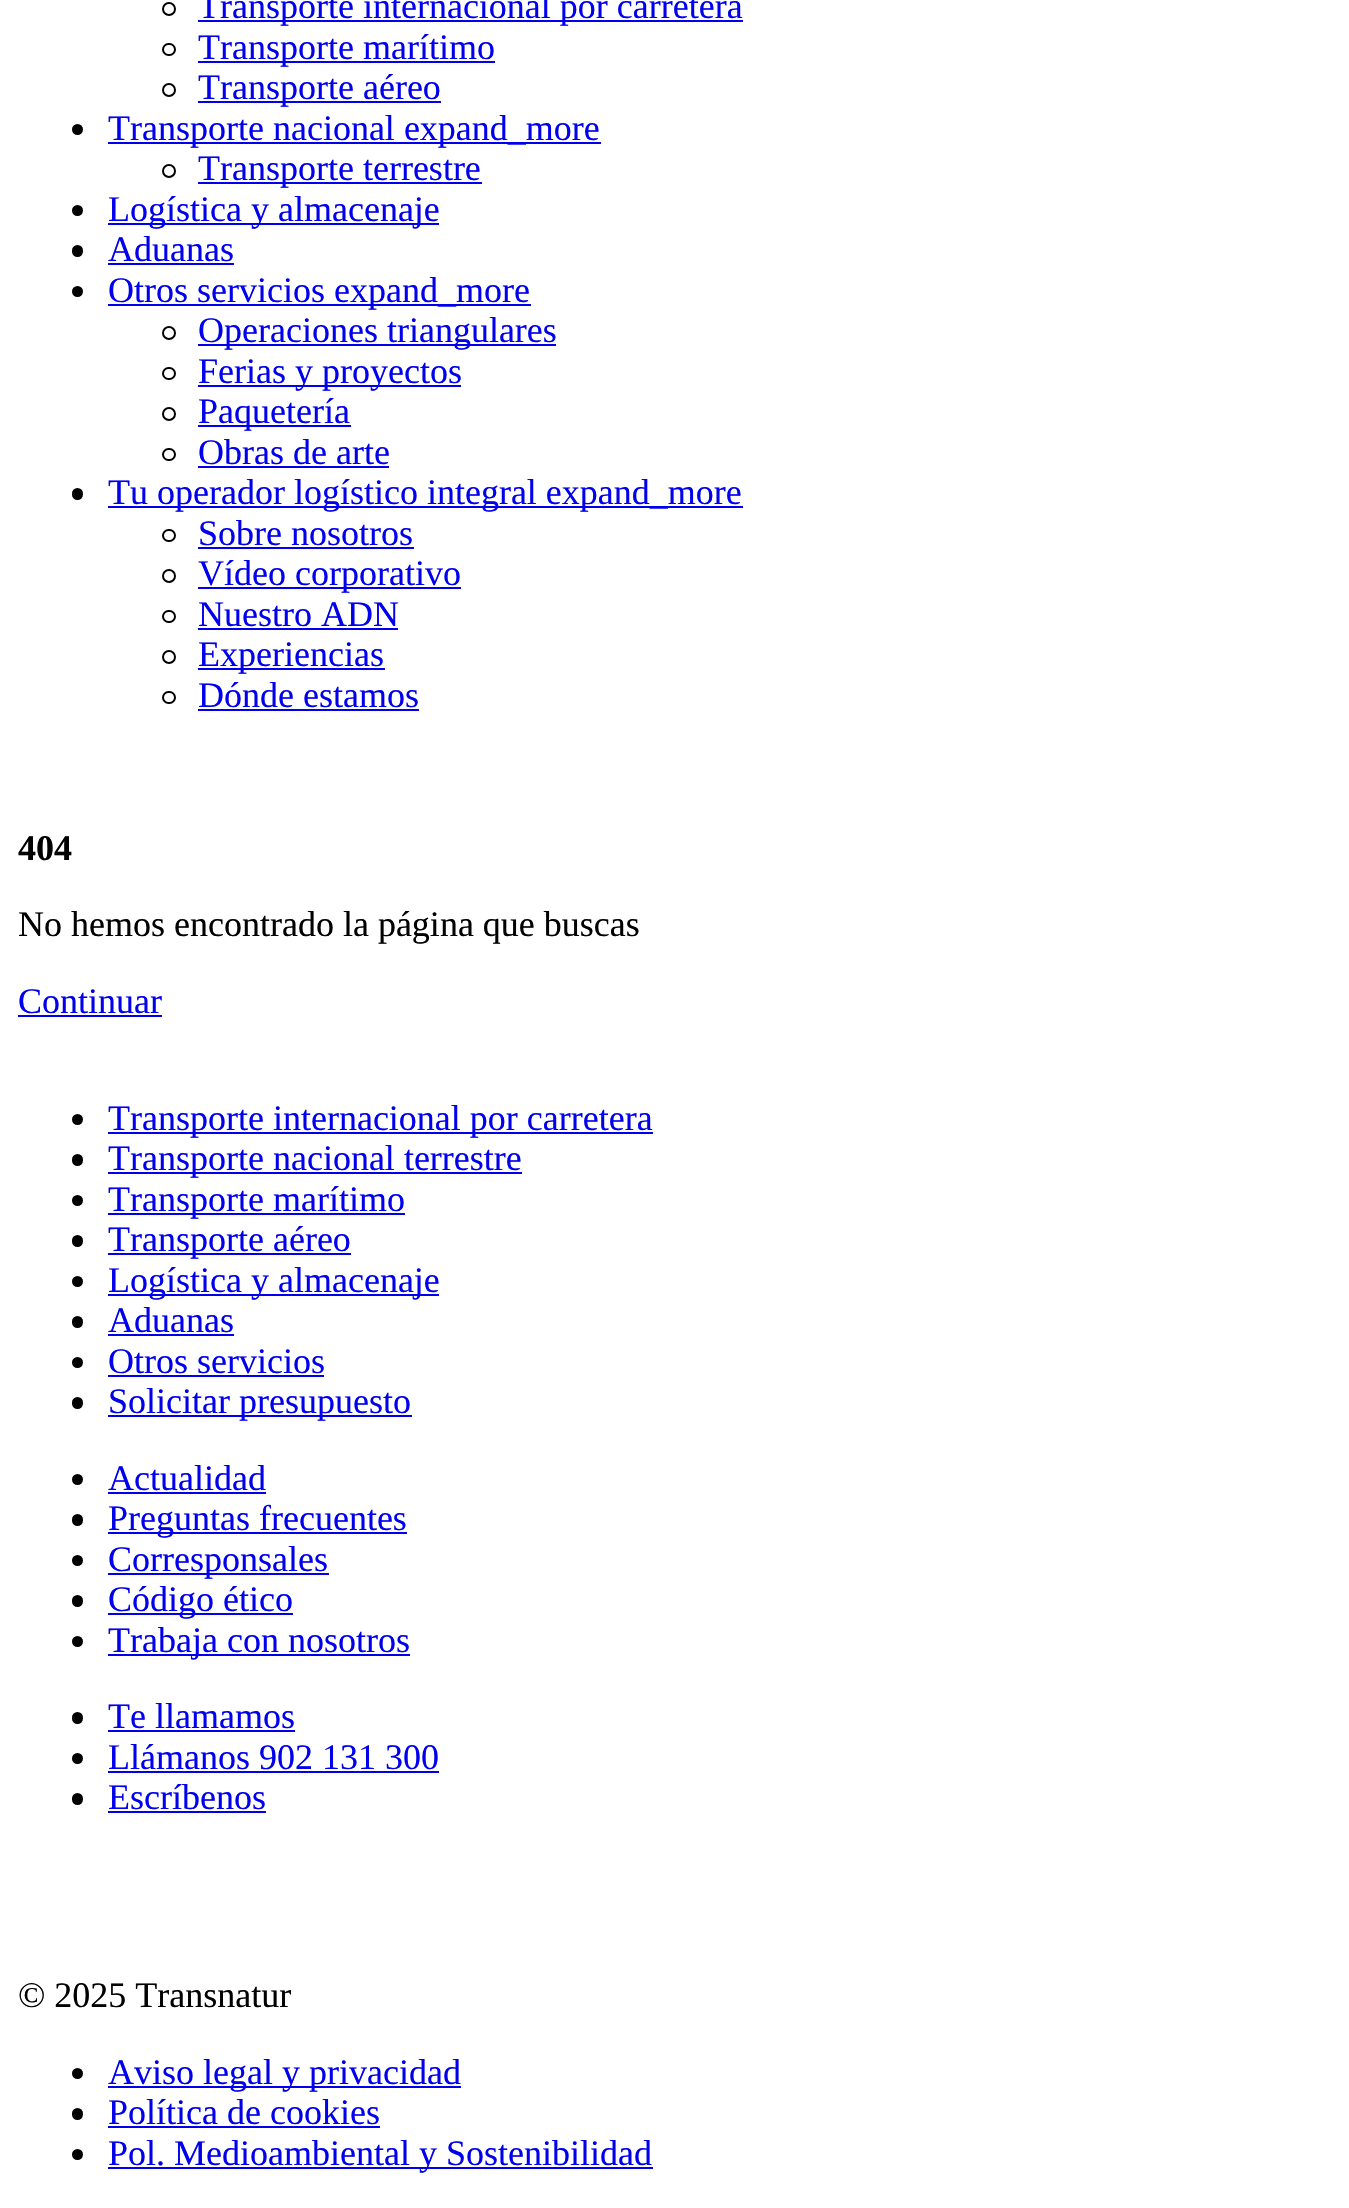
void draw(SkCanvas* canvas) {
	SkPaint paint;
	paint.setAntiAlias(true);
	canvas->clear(0xffffffff);
	paint.setStroke(true);
	paint.setStrokeWidth(2);
	paint.setColor(0xff000000);
	canvas->drawCircle(169, 9, 6, paint);
	paint.setStroke(false);
	paint.setColor(0xff0000ee);
	canvas->drawRect(SkRect::MakeXYWH(198, 20, 545, 2), paint);
	SkFont f1(fontMgr->matchFamilyStyle("Liberation Serif", SkFontStyle::Normal()), 36);
	f1.setSubpixel(true);
	canvas->drawString("Transporte internacional por carretera", 198, 18, f1, paint);
	paint.setStroke(true);
	paint.setColor(0xff000000);
	canvas->drawRoundRect(SkRect::MakeXYWH(163, 44, 12, 11), 5.5, 5.5, paint);
	paint.setStroke(false);
	paint.setColor(0xff0000ee);
	canvas->drawRect(SkRect::MakeXYWH(198, 61, 297, 2), paint);
	canvas->drawString("Transporte marítimo", 198, 59, f1, paint);
	paint.setStroke(true);
	paint.setColor(0xff000000);
	canvas->drawCircle(169, 90, 6, paint);
	paint.setStroke(false);
	paint.setColor(0xff0000ee);
	canvas->drawRect(SkRect::MakeXYWH(198, 101, 243, 2), paint);
	canvas->drawString("Transporte aéreo", 198, 99, f1, paint);
	paint.setColor(0xff000000);
	canvas->drawCircle(77.5, 129.5, 5.5, paint);
	paint.setColor(0xff0000ee);
	canvas->drawRect(SkRect::MakeXYWH(108, 142, 493, 2), paint);
	canvas->drawString("Transporte nacional expand_more", 108, 140, f1, paint);
	paint.setStroke(true);
	paint.setColor(0xff000000);
	canvas->drawCircle(169, 171, 6, paint);
	paint.setStroke(false);
	paint.setColor(0xff0000ee);
	canvas->drawRect(SkRect::MakeXYWH(198, 182, 284, 2), paint);
	canvas->drawString("Transporte terrestre", 198, 180, f1, paint);
	paint.setColor(0xff000000);
	canvas->drawCircle(77.5, 210.5, 5.5, paint);
	paint.setColor(0xff0000ee);
	canvas->drawRect(SkRect::MakeXYWH(108, 223, 331, 2), paint);
	canvas->drawString("Logística y almacenaje", 108, 221, f1, paint);
	paint.setColor(0xff000000);
	canvas->drawRoundRect(SkRect::MakeXYWH(72, 245, 11, 12), 5.5, 5.5, paint);
	paint.setColor(0xff0000ee);
	canvas->drawString("Aduanas", 108, 261, f1, paint);
	canvas->drawRect(SkRect::MakeXYWH(108, 263, 126, 2), paint);
	paint.setColor(0xff000000);
	canvas->drawCircle(77.5, 291.5, 5.5, paint);
	paint.setColor(0xff0000ee);
	canvas->drawRect(SkRect::MakeXYWH(108, 304, 423, 2), paint);
	canvas->drawString("Otros servicios expand_more", 108, 302, f1, paint);
	paint.setStroke(true);
	paint.setColor(0xff000000);
	canvas->drawCircle(169, 333, 6, paint);
	paint.setStroke(false);
	paint.setColor(0xff0000ee);
	canvas->drawRect(SkRect::MakeXYWH(198, 344, 358, 2), paint);
	canvas->drawString("Operaciones triangulares", 198, 342, f1, paint);
	paint.setStroke(true);
	paint.setColor(0xff000000);
	canvas->drawRoundRect(SkRect::MakeXYWH(163, 368, 12, 11), 5.5, 5.5, paint);
	paint.setStroke(false);
	paint.setColor(0xff0000ee);
	canvas->drawRect(SkRect::MakeXYWH(198, 385, 263, 2), paint);
	canvas->drawString("Ferias y proyectos", 198, 383, f1, paint);
	paint.setStroke(true);
	paint.setColor(0xff000000);
	canvas->drawCircle(169, 414, 6, paint);
	paint.setStroke(false);
	paint.setColor(0xff0000ee);
	canvas->drawRect(SkRect::MakeXYWH(198, 425, 153, 2), paint);
	canvas->drawString("Paquetería", 198, 423, f1, paint);
	paint.setStroke(true);
	paint.setColor(0xff000000);
	canvas->drawRoundRect(SkRect::MakeXYWH(163, 449, 12, 11), 5.5, 5.5, paint);
	paint.setStroke(false);
	paint.setColor(0xff0000ee);
	canvas->drawString("Obras de arte", 198, 464, f1, paint);
	canvas->drawRect(SkRect::MakeXYWH(198, 466, 191, 2), paint);
	paint.setColor(0xff000000);
	canvas->drawRoundRect(SkRect::MakeXYWH(72, 488, 11, 12), 5.5, 5.5, paint);
	paint.setColor(0xff0000ee);
	canvas->drawRect(SkRect::MakeXYWH(108, 506, 635, 2), paint);
	canvas->drawString("Tu operador logístico integral expand_more", 108, 504, f1, paint);
	paint.setStroke(true);
	paint.setColor(0xff000000);
	canvas->drawRoundRect(SkRect::MakeXYWH(163, 530, 12, 11), 5.5, 5.5, paint);
	paint.setStroke(false);
	paint.setColor(0xff0000ee);
	canvas->drawString("Sobre nosotros", 198, 545, f1, paint);
	canvas->drawRect(SkRect::MakeXYWH(198, 547, 216, 2), paint);
	paint.setStroke(true);
	paint.setColor(0xff000000);
	canvas->drawCircle(169, 576, 6, paint);
	paint.setStroke(false);
	paint.setColor(0xff0000ee);
	canvas->drawRect(SkRect::MakeXYWH(198, 587, 263, 2), paint);
	canvas->drawString("Vídeo corporativo", 198, 585, f1, paint);
	paint.setStroke(true);
	paint.setColor(0xff000000);
	canvas->drawRoundRect(SkRect::MakeXYWH(163, 611, 12, 11), 5.5, 5.5, paint);
	paint.setStroke(false);
	paint.setColor(0xff0000ee);
	canvas->drawString("Nuestro ADN", 198, 626, f1, paint);
	canvas->drawRect(SkRect::MakeXYWH(198, 628, 200, 2), paint);
	paint.setStroke(true);
	paint.setColor(0xff000000);
	canvas->drawCircle(169, 657, 6, paint);
	paint.setStroke(false);
	paint.setColor(0xff0000ee);
	canvas->drawRect(SkRect::MakeXYWH(198, 668, 187, 2), paint);
	canvas->drawString("Experiencias", 198, 666, f1, paint);
	paint.setStroke(true);
	paint.setColor(0xff000000);
	canvas->drawRoundRect(SkRect::MakeXYWH(163, 692, 12, 11), 5.5, 5.5, paint);
	paint.setStroke(false);
	paint.setColor(0xff0000ee);
	canvas->drawString("Dónde estamos", 198, 707, f1, paint);
	canvas->drawRect(SkRect::MakeXYWH(198, 709, 221, 2), paint);
	SkFont f2(fontMgr->matchFamilyStyle("Liberation Serif", SkFontStyle::Bold()), 36);
	f2.setSubpixel(true);
	paint.setColor(0xff000000);
	canvas->drawString("404", 18, 860, f2, paint);
	canvas->drawString("No hemos encontrado la página que buscas", 18, 936, f1, paint);
	paint.setColor(0xff0000ee);
	canvas->drawString("Continuar", 18, 1013, f1, paint);
	canvas->drawRect(SkRect::MakeXYWH(18, 1015, 144, 2), paint);
	paint.setColor(0xff000000);
	canvas->drawCircle(77.5, 1119.5, 5.5, paint);
	paint.setColor(0xff0000ee);
	canvas->drawRect(SkRect::MakeXYWH(108, 1132, 545, 2), paint);
	canvas->drawString("Transporte internacional por carretera", 108, 1130, f1, paint);
	paint.setColor(0xff000000);
	canvas->drawRoundRect(SkRect::MakeXYWH(72, 1154, 11, 12), 5.5, 5.5, paint);
	paint.setColor(0xff0000ee);
	canvas->drawRect(SkRect::MakeXYWH(108, 1172, 414, 2), paint);
	canvas->drawString("Transporte nacional terrestre", 108, 1170, f1, paint);
	paint.setColor(0xff000000);
	canvas->drawCircle(77.5, 1200.5, 5.5, paint);
	paint.setColor(0xff0000ee);
	canvas->drawRect(SkRect::MakeXYWH(108, 1213, 297, 2), paint);
	canvas->drawString("Transporte marítimo", 108, 1211, f1, paint);
	paint.setColor(0xff000000);
	canvas->drawRoundRect(SkRect::MakeXYWH(72, 1235, 11, 12), 5.5, 5.5, paint);
	paint.setColor(0xff0000ee);
	canvas->drawRect(SkRect::MakeXYWH(108, 1253, 243, 2), paint);
	canvas->drawString("Transporte aéreo", 108, 1251, f1, paint);
	paint.setColor(0xff000000);
	canvas->drawCircle(77.5, 1281.5, 5.5, paint);
	paint.setColor(0xff0000ee);
	canvas->drawRect(SkRect::MakeXYWH(108, 1294, 331, 2), paint);
	canvas->drawString("Logística y almacenaje", 108, 1292, f1, paint);
	paint.setColor(0xff000000);
	canvas->drawRoundRect(SkRect::MakeXYWH(72, 1316, 11, 12), 5.5, 5.5, paint);
	paint.setColor(0xff0000ee);
	canvas->drawString("Aduanas", 108, 1332, f1, paint);
	canvas->drawRect(SkRect::MakeXYWH(108, 1334, 126, 2), paint);
	paint.setColor(0xff000000);
	canvas->drawCircle(77.5, 1362.5, 5.5, paint);
	paint.setColor(0xff0000ee);
	canvas->drawString("Otros servicios", 108, 1373, f1, paint);
	canvas->drawRect(SkRect::MakeXYWH(108, 1375, 216, 2), paint);
	paint.setColor(0xff000000);
	canvas->drawRoundRect(SkRect::MakeXYWH(72, 1397, 11, 12), 5.5, 5.5, paint);
	paint.setColor(0xff0000ee);
	canvas->drawRect(SkRect::MakeXYWH(108, 1415, 304, 2), paint);
	canvas->drawString("Solicitar presupuesto", 108, 1413, f1, paint);
	paint.setColor(0xff000000);
	canvas->drawCircle(77.5, 1479.5, 5.5, paint);
	paint.setColor(0xff0000ee);
	canvas->drawString("Actualidad", 108, 1490, f1, paint);
	canvas->drawRect(SkRect::MakeXYWH(108, 1492, 158, 2), paint);
	paint.setColor(0xff000000);
	canvas->drawRoundRect(SkRect::MakeXYWH(72, 1514, 11, 12), 5.5, 5.5, paint);
	paint.setColor(0xff0000ee);
	canvas->drawRect(SkRect::MakeXYWH(108, 1532, 299, 2), paint);
	canvas->drawString("Preguntas frecuentes", 108, 1530, f1, paint);
	paint.setColor(0xff000000);
	canvas->drawCircle(77.5, 1560.5, 5.5, paint);
	paint.setColor(0xff0000ee);
	canvas->drawRect(SkRect::MakeXYWH(108, 1573, 221, 2), paint);
	canvas->drawString("Corresponsales", 108, 1571, f1, paint);
	paint.setColor(0xff000000);
	canvas->drawRoundRect(SkRect::MakeXYWH(72, 1595, 11, 12), 5.5, 5.5, paint);
	paint.setColor(0xff0000ee);
	canvas->drawRect(SkRect::MakeXYWH(108, 1613, 185, 2), paint);
	canvas->drawString("Código ético", 108, 1611, f1, paint);
	paint.setColor(0xff000000);
	canvas->drawCircle(77.5, 1641.5, 5.5, paint);
	paint.setColor(0xff0000ee);
	canvas->drawRect(SkRect::MakeXYWH(108, 1654, 302, 2), paint);
	canvas->drawString("Trabaja con nosotros", 108, 1652, f1, paint);
	paint.setColor(0xff000000);
	canvas->drawRoundRect(SkRect::MakeXYWH(72, 1712, 11, 12), 5.5, 5.5, paint);
	paint.setColor(0xff0000ee);
	canvas->drawString("Te llamamos", 108, 1728, f1, paint);
	canvas->drawRect(SkRect::MakeXYWH(108, 1730, 187, 2), paint);
	paint.setColor(0xff000000);
	canvas->drawCircle(77.5, 1758.5, 5.5, paint);
	paint.setColor(0xff0000ee);
	canvas->drawString("Llámanos 902 131 300", 108, 1769, f1, paint);
	canvas->drawRect(SkRect::MakeXYWH(108, 1771, 331, 2), paint);
	paint.setColor(0xff000000);
	canvas->drawRoundRect(SkRect::MakeXYWH(72, 1793, 11, 12), 5.5, 5.5, paint);
	paint.setColor(0xff0000ee);
	canvas->drawString("Escríbenos", 108, 1809, f1, paint);
	canvas->drawRect(SkRect::MakeXYWH(108, 1811, 158, 2), paint);
	paint.setColor(0xff000000);
	canvas->drawString("© 2025 Transnatur", 18, 2007, f1, paint);
	canvas->drawCircle(77.5, 2073.5, 5.5, paint);
	paint.setColor(0xff0000ee);
	canvas->drawRect(SkRect::MakeXYWH(108, 2086, 353, 2), paint);
	canvas->drawString("Aviso legal y privacidad", 108, 2084, f1, paint);
	paint.setColor(0xff000000);
	canvas->drawRoundRect(SkRect::MakeXYWH(72, 2108, 11, 12), 5.5, 5.5, paint);
	paint.setColor(0xff0000ee);
	canvas->drawString("Política de cookies", 108, 2124, f1, paint);
	canvas->drawRect(SkRect::MakeXYWH(108, 2126, 272, 2), paint);
	paint.setColor(0xff000000);
	canvas->drawCircle(77.5, 2154.5, 5.5, paint);
	paint.setColor(0xff0000ee);
	canvas->drawRect(SkRect::MakeXYWH(108, 2167, 545, 2), paint);
	canvas->drawString("Pol. Medioambiental y Sostenibilidad", 108, 2165, f1, paint);
}
